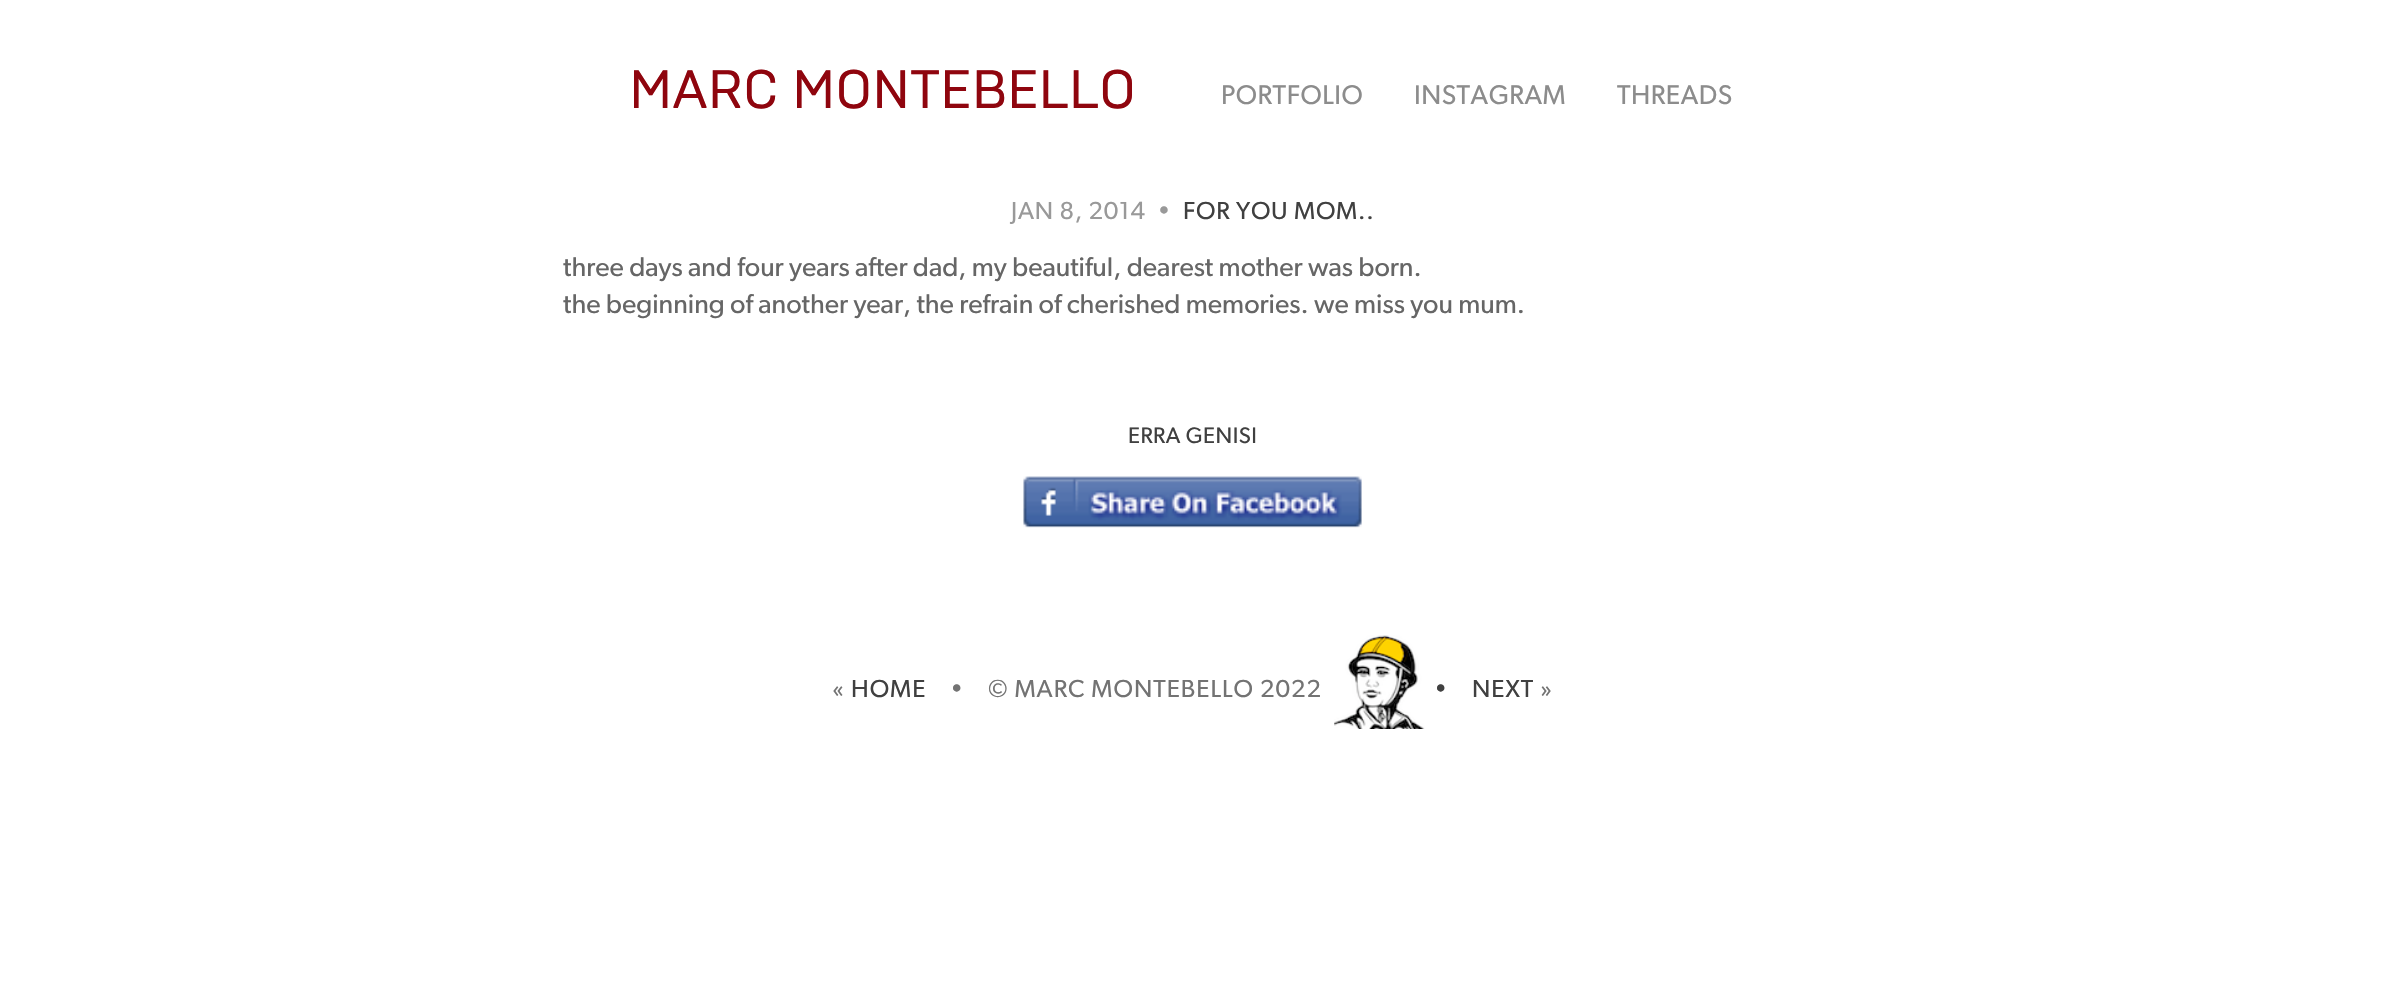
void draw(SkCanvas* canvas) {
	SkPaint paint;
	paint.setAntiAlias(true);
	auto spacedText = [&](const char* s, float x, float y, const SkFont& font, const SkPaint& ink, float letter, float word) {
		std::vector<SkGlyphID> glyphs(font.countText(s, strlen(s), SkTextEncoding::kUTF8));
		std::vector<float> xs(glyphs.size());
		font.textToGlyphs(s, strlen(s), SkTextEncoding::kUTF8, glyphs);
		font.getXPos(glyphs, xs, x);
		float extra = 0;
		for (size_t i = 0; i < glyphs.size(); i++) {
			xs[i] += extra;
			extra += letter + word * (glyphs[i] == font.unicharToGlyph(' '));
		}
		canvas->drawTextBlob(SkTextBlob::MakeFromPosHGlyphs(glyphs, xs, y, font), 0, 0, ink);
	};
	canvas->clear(0xffffffff);
	SkFont f1(fontMgr->matchFamilyStyle("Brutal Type", SkFontStyle::Normal()), 54);
	f1.setSubpixel(true);
	paint.setColor(0xff8f050e);
	canvas->drawString("MARC MONTEBELLO", 629, 108, f1, paint);
	SkFont f2(fontMgr->matchFamilyStyle("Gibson", SkFontStyle::Normal()), 27);
	f2.setSubpixel(true);
	paint.setColor(0xff8c8c8c);
	spacedText("PORTFOLIO", 1221, 104, f2, paint, 0.5, 0);
	spacedText("INSTAGRAM", 1414, 104, f2, paint, 0.5, 0);
	spacedText("THREADS", 1617, 104, f2, paint, 0.5, 0);
	SkFont f3(fontMgr->matchFamilyStyle("Gibson", SkFontStyle::Normal()), 24.75);
	f3.setSubpixel(true);
	paint.setColor(0xff999999);
	spacedText("JAN 8, 2014  •", 1011, 219, f3, paint, 0.75, 0);
	paint.setColor(0xff404040);
	spacedText("FOR YOU MOM..", 1183, 219, f3, paint, 0.75, 0);
	paint.setColor(0xff666666);
	canvas->drawString("three days and four years after dad, my beautiful, dearest mother was born.", 563, 276, f2, paint);
	canvas->drawString("the beginning of another year, the refrain of cherished memories. we miss you mum.", 563, 313, f2, paint);
	SkFont f4(fontMgr->matchFamilyStyle("Gibson", SkFontStyle::Normal()), 22.5);
	f4.setSubpixel(true);
	paint.setColor(0xff404040);
	spacedText("ERRA GENISI", 1128, 443, f4, paint, 0.5, 0);
	canvas->drawImageRect(SkImages::DeferredFromEncodedData(SkData::MakeFromFileName("img1.png")), SkRect::MakeXYWH(1023, 476, 339, 52), SkSamplingOptions());
	paint.setColor(0xff737373);
	spacedText("«", 832, 697, f3, paint, 1, 0);
	paint.setColor(0xff404040);
	spacedText("HOME", 851, 697, f3, paint, 1, 0);
	paint.setColor(0xff737373);
	spacedText("•    © MARC MONTEBELLO 2022", 950, 697, f3, paint, 1, 0);
	canvas->drawImageRect(SkImages::DeferredFromEncodedData(SkData::MakeFromFileName("img2.png")), SkRect::MakeXYWH(1334, 635, 91, 94), SkSamplingOptions());
	paint.setColor(0xff404040);
	spacedText("•", 1434, 697, f3, paint, 1, 0);
	spacedText("NEXT", 1472, 697, f3, paint, 1, 0);
	paint.setColor(0xff737373);
	spacedText("»", 1540, 697, f3, paint, 1, 0);
}
